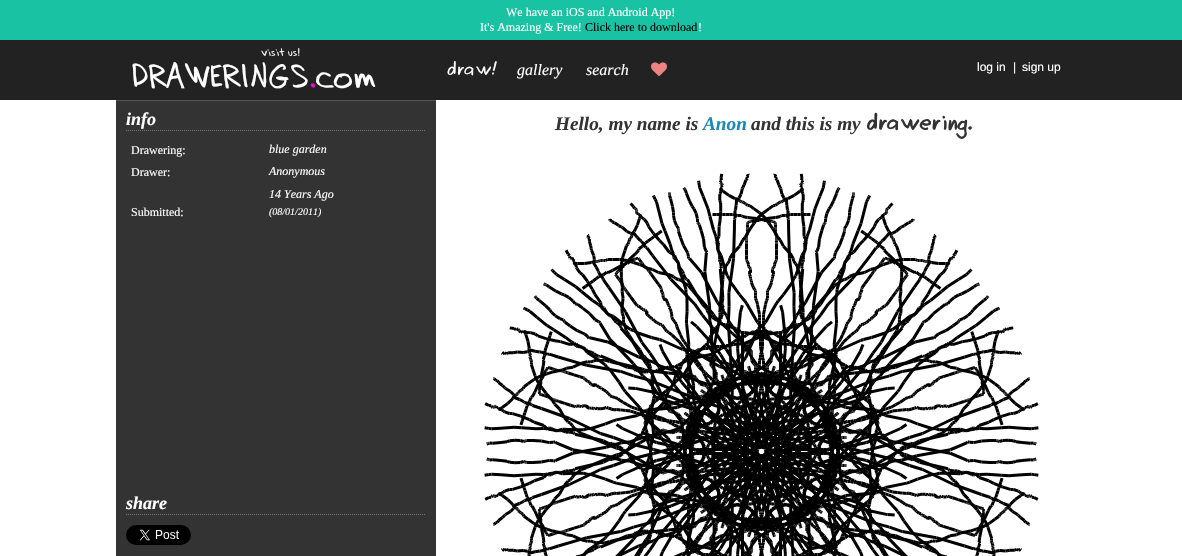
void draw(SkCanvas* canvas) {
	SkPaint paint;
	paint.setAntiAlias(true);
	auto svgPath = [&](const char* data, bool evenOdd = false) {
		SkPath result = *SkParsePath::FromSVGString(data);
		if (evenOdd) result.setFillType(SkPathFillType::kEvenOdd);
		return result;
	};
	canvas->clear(0xff222222);
	paint.setColor(0xff19c2a2);
	canvas->drawRect(SkRect::MakeXYWH(0, 0, 1182, 40), paint);
	SkFont f1(fontMgr->matchFamilyStyle("Liberation Serif", SkFontStyle::Normal()), 12);
	f1.setSubpixel(true);
	paint.setColor(0xffffffff);
	canvas->drawString("We have an iOS and Android App!", 506, 16, f1, paint);
	canvas->drawString("It's Amazing & Free!", 480, 31, f1, paint);
	paint.setColor(0xff000000);
	canvas->drawString("Click here to download", 585, 31, f1, paint);
	paint.setColor(0xffffffff);
	canvas->drawString("!", 698, 31, f1, paint);
	SkFont f2(fontMgr->matchFamilyStyle("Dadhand", SkFontStyle::Normal()), 11);
	f2.setSubpixel(true);
	canvas->drawString("visit us!", 261, 56, f2, paint);
	SkFont f3(fontMgr->matchFamilyStyle("Dadhand", SkFontStyle::Normal()), 36);
	f3.setSubpixel(true);
	canvas->drawString("DRAWERINGS", 131, 88, f3, paint);
	paint.setColor(0xffe30dc4);
	canvas->drawString(".", 309, 88, f3, paint);
	paint.setColor(0xffffffff);
	canvas->drawString("com", 317, 88, f3, paint);
	SkFont f4(fontMgr->matchFamilyStyle("Dadhand", SkFontStyle::Italic()), 19.25);
	f4.setSubpixel(true);
	canvas->drawString("draw!", 446, 75, f4, paint);
	SkFont f5(fontMgr->matchFamilyStyle("Liberation Serif", SkFontStyle::Italic()), 16);
	f5.setSubpixel(true);
	canvas->drawString("gallery", 517, 75, f5, paint);
	canvas->drawString("search", 586, 75, f5, paint);
	canvas->drawImageRect(SkImages::DeferredFromEncodedData(SkData::MakeFromFileName("img1.png")), SkRect::MakeXYWH(651, 62, 16, 15), SkSamplingOptions());
	SkFont f6(fontMgr->matchFamilyStyle("Liberation Sans", SkFontStyle::Normal()), 12);
	f6.setSubpixel(true);
	canvas->drawString("log in", 977, 71, f6, paint);
	canvas->drawString("|", 1013, 71, f6, paint);
	canvas->drawString("sign up", 1022, 71, f6, paint);
	canvas->drawRect(SkRect::MakeXYWH(0, 100, 1182, 456), paint);
	paint.setColor(0xff333333);
	canvas->drawRect(SkRect::MakeXYWH(116, 101, 320, 455), paint);
	paint.setColor(0xff555555);
	canvas->drawRect(SkRect::MakeXYWH(116, 100, 320, 1), paint);
	paint.setStroke(true);
	paint.setStrokeWidth(1);
	paint.setColor(0xff777777);
	paint.setPathEffect(SkDashPathEffect::Make({{1, 1}}, 0));
	canvas->drawPath(svgPath("M126 130.5H426"), paint);
	paint.setPathEffect(nullptr);
	SkFont f7(fontMgr->matchFamilyStyle("Liberation Serif", SkFontStyle::BoldItalic()), 18);
	f7.setSubpixel(true);
	paint.setStroke(false);
	paint.setColor(0xffffffff);
	canvas->drawString("info", 126, 125, f7, paint);
	canvas->drawString("Drawering:", 131, 154, f1, paint);
	SkFont f8(fontMgr->matchFamilyStyle("Liberation Serif", SkFontStyle::Italic()), 12);
	f8.setSubpixel(true);
	canvas->drawString("blue garden", 269, 153, f8, paint);
	canvas->drawString("Drawer:", 131, 176, f1, paint);
	canvas->drawString("Anonymous", 269, 175, f8, paint);
	canvas->drawString("Submitted:", 131, 216, f1, paint);
	canvas->drawString("14 Years Ago", 269, 198, f8, paint);
	SkFont f9(fontMgr->matchFamilyStyle("Liberation Serif", SkFontStyle::Italic()), 10);
	f9.setSubpixel(true);
	canvas->drawString("(08/01/2011)", 269, 215, f9, paint);
	paint.setStroke(true);
	paint.setColor(0xff777777);
	paint.setPathEffect(SkDashPathEffect::Make({{1, 1}}, 0));
	canvas->drawPath(svgPath("M126 514.5H426"), paint);
	paint.setPathEffect(nullptr);
	paint.setStroke(false);
	paint.setColor(0xffffffff);
	canvas->drawString("share", 126, 509, f7, paint);
	canvas->drawImageRect(SkImages::DeferredFromEncodedData(SkData::MakeFromFileName("img2.png")), SkRect::MakeXYWH(126, 525, 65, 20), SkSamplingOptions());
	SkFont f10(fontMgr->matchFamilyStyle("Liberation Serif", SkFontStyle::BoldItalic()), 19.25);
	f10.setSubpixel(true);
	paint.setColor(0xff333333);
	canvas->drawString("Hello, my name is", 555, 130, f10, paint);
	paint.setColor(0xff1b89b3);
	canvas->drawString("Anon", 703, 130, f10, paint);
	paint.setColor(0xff333333);
	canvas->drawString("and this is my", 751, 130, f10, paint);
	SkFont f11(fontMgr->matchFamilyStyle("Dadhand", SkFontStyle::BoldItalic()), 23);
	f11.setSubpixel(true);
	canvas->drawString("drawering.", 865, 130, f11, paint);
	canvas->drawImageRect(SkImages::DeferredFromEncodedData(SkData::MakeFromFileName("img3.png")), SkRect::MakeXYWH(484, 173, 555, 383), SkSamplingOptions());
}
